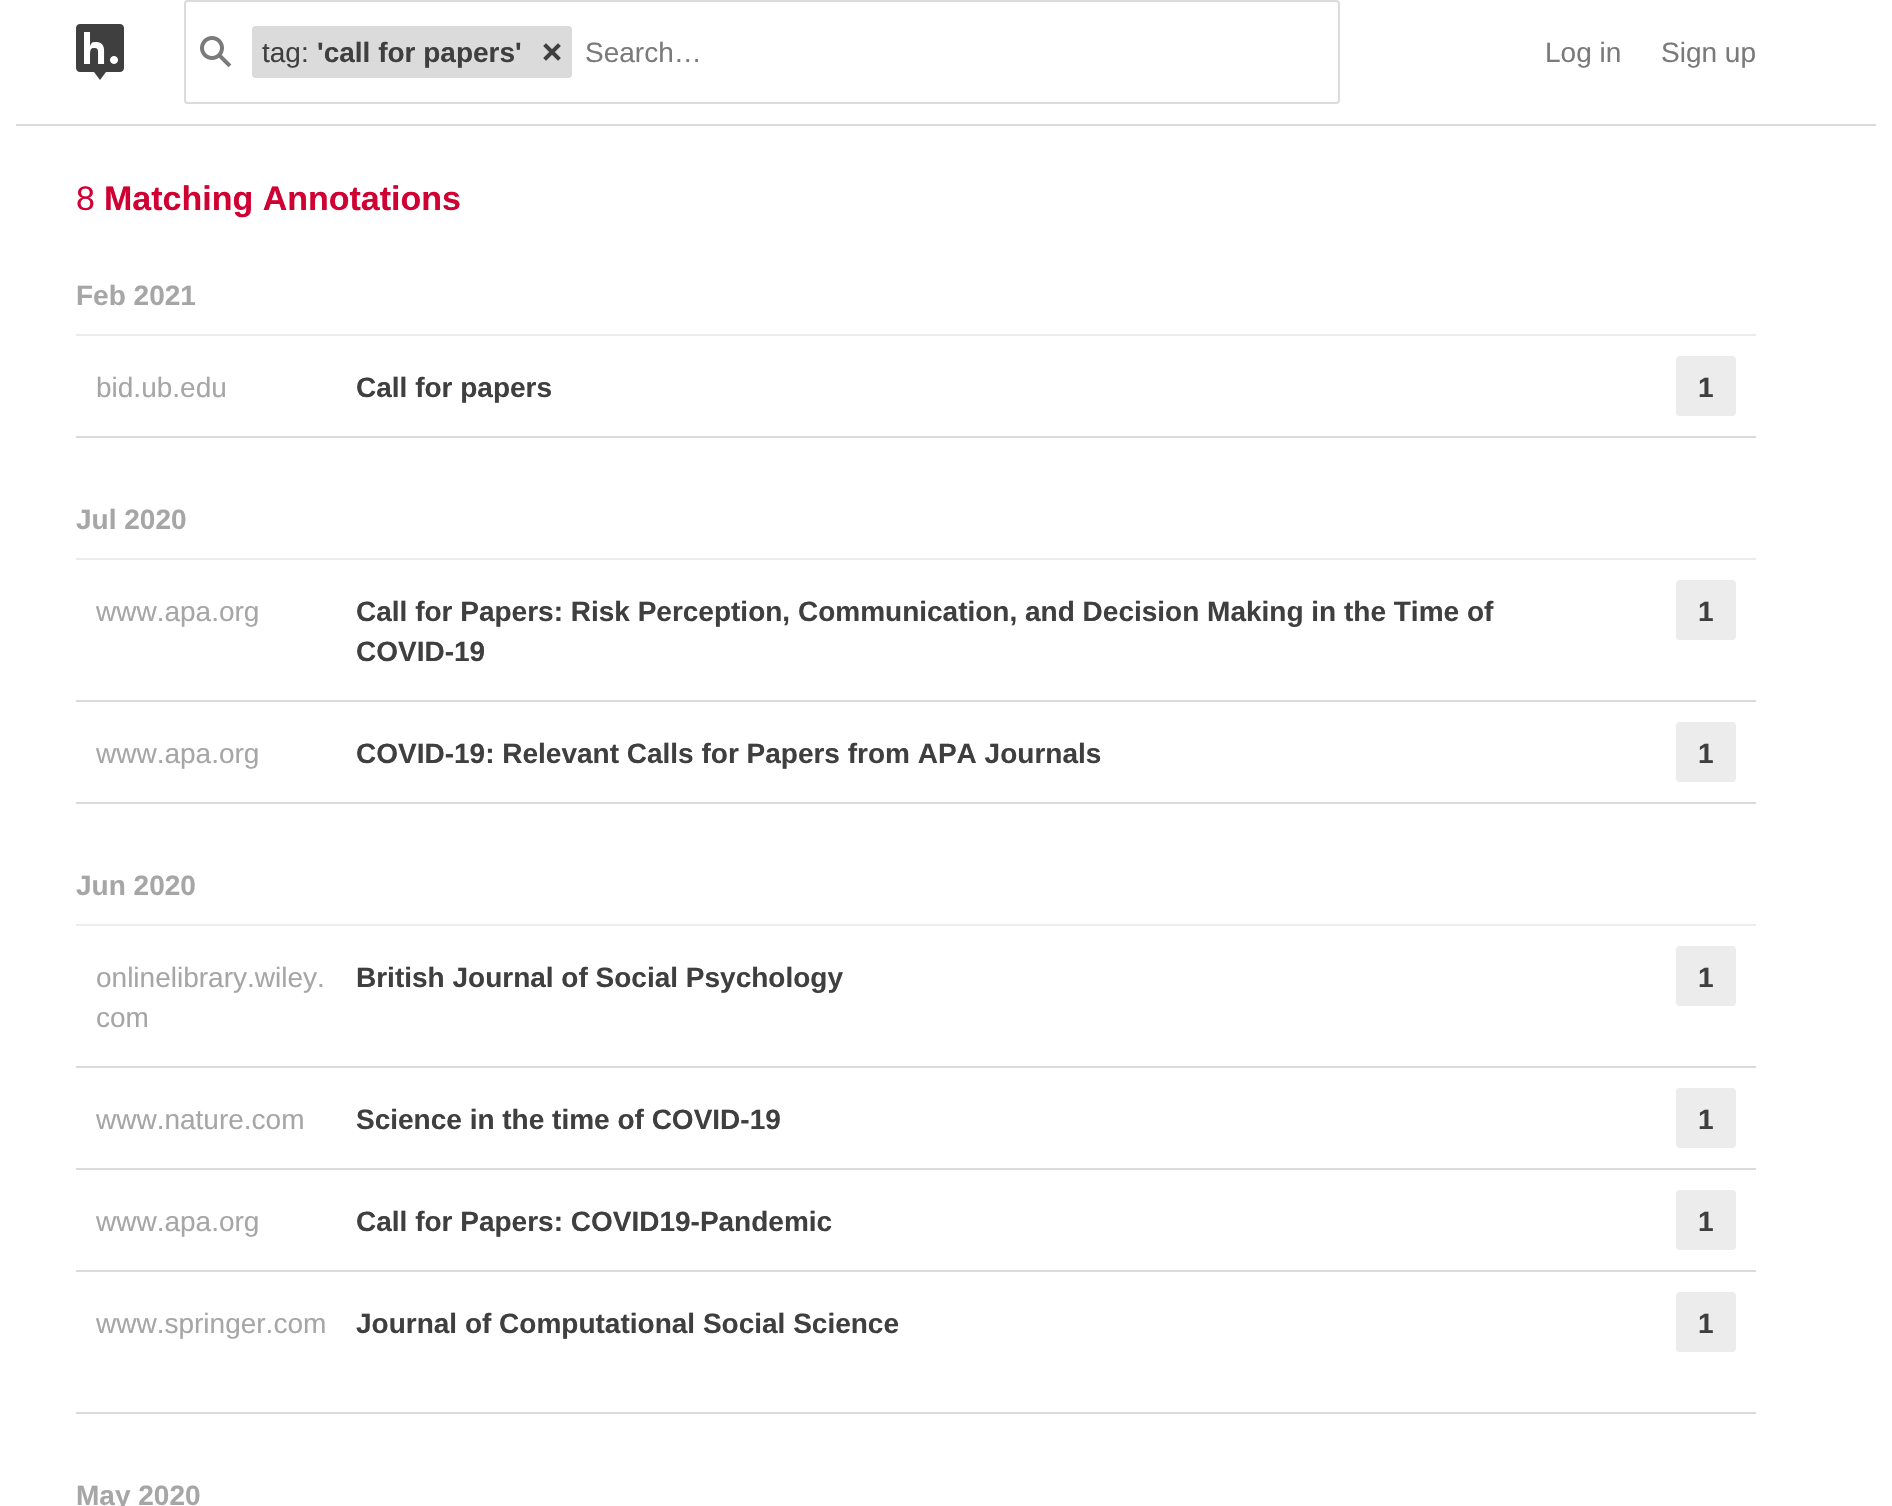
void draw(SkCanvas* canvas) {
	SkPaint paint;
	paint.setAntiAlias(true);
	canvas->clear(0xffffffff);
	paint.setColor(0xffdbdbdb);
	canvas->drawRect(SkRect::MakeXYWH(16, 124, 1860, 2), paint);
	canvas->drawImageRect(SkImages::DeferredFromEncodedData(SkData::MakeFromFileName("img1.png")), SkRect::MakeXYWH(76, 24, 48, 56), SkSamplingOptions());
	paint.setStroke(true);
	paint.setStrokeWidth(2);
	canvas->drawRoundRect(SkRect::MakeXYWH(185, 1, 1154, 102), 3, 3, paint);
	canvas->drawImageRect(SkImages::DeferredFromEncodedData(SkData::MakeFromFileName("img2.png")), SkRect::MakeXYWH(200, 36, 32, 32), SkSamplingOptions());
	paint.setStroke(false);
	canvas->drawRoundRect(SkRect::MakeXYWH(252, 26, 320, 52), 4, 4, paint);
	SkFont f1(fontMgr->matchFamilyStyle("Liberation Sans", SkFontStyle::Normal()), 28);
	f1.setSubpixel(true);
	paint.setColor(0xff3f3f3f);
	canvas->drawString("tag:", 262, 62, f1, paint);
	SkFont f2(fontMgr->matchFamilyStyle("Liberation Sans", SkFontStyle::Bold()), 28);
	f2.setSubpixel(true);
	canvas->drawString("'call for papers'", 317, 62, f2, paint);
	canvas->drawImageRect(SkImages::DeferredFromEncodedData(SkData::MakeFromFileName("img3.png")), SkRect::MakeXYWH(543, 43, 18, 18), SkSamplingOptions());
	paint.setColor(0xff7a7a7a);
	canvas->drawString("Search…", 585, 62, f1, paint);
	canvas->drawString("Log in", 1545, 62, f1, paint);
	canvas->drawString("Sign up", 1661, 62, f1, paint);
	SkFont f3(fontMgr->matchFamilyStyle("Liberation Sans", SkFontStyle::Normal()), 34);
	f3.setSubpixel(true);
	paint.setColor(0xffd00032);
	canvas->drawString("8", 76, 210, f3, paint);
	SkFont f4(fontMgr->matchFamilyStyle("Liberation Sans", SkFontStyle::Bold()), 34);
	f4.setSubpixel(true);
	canvas->drawString("Matching Annotations", 104, 210, f4, paint);
	paint.setColor(0xffececec);
	canvas->drawRect(SkRect::MakeXYWH(76, 334, 1680, 2), paint);
	paint.setColor(0xffa6a6a6);
	canvas->drawString("Feb 2021", 76, 305, f2, paint);
	paint.setColor(0xffdbdbdb);
	canvas->drawRect(SkRect::MakeXYWH(76, 436, 1680, 2), paint);
	paint.setColor(0xffa6a6a6);
	canvas->drawString("bid.ub.edu", 96, 397, f1, paint);
	paint.setColor(0xff3f3f3f);
	canvas->drawString("Call for papers", 356, 397, f2, paint);
	paint.setColor(0xffececec);
	canvas->drawRoundRect(SkRect::MakeXYWH(1676, 356, 60, 60), 4, 4, paint);
	paint.setColor(0xff3f3f3f);
	canvas->drawString("1", 1698, 397, f2, paint);
	paint.setColor(0xffececec);
	canvas->drawRect(SkRect::MakeXYWH(76, 558, 1680, 2), paint);
	paint.setColor(0xffa6a6a6);
	canvas->drawString("Jul 2020", 76, 529, f2, paint);
	paint.setColor(0xffdbdbdb);
	canvas->drawRect(SkRect::MakeXYWH(76, 700, 1680, 2), paint);
	paint.setColor(0xffa6a6a6);
	canvas->drawString("www.apa.org", 96, 621, f1, paint);
	paint.setColor(0xff3f3f3f);
	canvas->drawString("Call for Papers: Risk Perception, Communication, and Decision Making in the Time of", 356, 621, f2, paint);
	canvas->drawString("COVID-19", 356, 661, f2, paint);
	paint.setColor(0xffececec);
	canvas->drawRoundRect(SkRect::MakeXYWH(1676, 580, 60, 60), 4, 4, paint);
	paint.setColor(0xff3f3f3f);
	canvas->drawString("1", 1698, 621, f2, paint);
	paint.setColor(0xffdbdbdb);
	canvas->drawRect(SkRect::MakeXYWH(76, 802, 1680, 2), paint);
	paint.setColor(0xffa6a6a6);
	canvas->drawString("www.apa.org", 96, 763, f1, paint);
	paint.setColor(0xff3f3f3f);
	canvas->drawString("COVID-19: Relevant Calls for Papers from APA Journals", 356, 763, f2, paint);
	paint.setColor(0xffececec);
	canvas->drawRoundRect(SkRect::MakeXYWH(1676, 722, 60, 60), 4, 4, paint);
	paint.setColor(0xff3f3f3f);
	canvas->drawString("1", 1698, 763, f2, paint);
	paint.setColor(0xffececec);
	canvas->drawRect(SkRect::MakeXYWH(76, 924, 1680, 2), paint);
	paint.setColor(0xffa6a6a6);
	canvas->drawString("Jun 2020", 76, 895, f2, paint);
	paint.setColor(0xffdbdbdb);
	canvas->drawRect(SkRect::MakeXYWH(76, 1066, 1680, 2), paint);
	paint.setColor(0xffa6a6a6);
	canvas->drawString("onlinelibrary.wiley.", 96, 987, f1, paint);
	canvas->drawString("com", 96, 1027, f1, paint);
	paint.setColor(0xff3f3f3f);
	canvas->drawString("British Journal of Social Psychology", 356, 987, f2, paint);
	paint.setColor(0xffececec);
	canvas->drawRoundRect(SkRect::MakeXYWH(1676, 946, 60, 60), 4, 4, paint);
	paint.setColor(0xff3f3f3f);
	canvas->drawString("1", 1698, 987, f2, paint);
	paint.setColor(0xffdbdbdb);
	canvas->drawRect(SkRect::MakeXYWH(76, 1168, 1680, 2), paint);
	paint.setColor(0xffa6a6a6);
	canvas->drawString("www.nature.com", 96, 1129, f1, paint);
	paint.setColor(0xff3f3f3f);
	canvas->drawString("Science in the time of COVID-19", 356, 1129, f2, paint);
	paint.setColor(0xffececec);
	canvas->drawRoundRect(SkRect::MakeXYWH(1676, 1088, 60, 60), 4, 4, paint);
	paint.setColor(0xff3f3f3f);
	canvas->drawString("1", 1698, 1129, f2, paint);
	paint.setColor(0xffdbdbdb);
	canvas->drawRect(SkRect::MakeXYWH(76, 1270, 1680, 2), paint);
	paint.setColor(0xffa6a6a6);
	canvas->drawString("www.apa.org", 96, 1231, f1, paint);
	paint.setColor(0xff3f3f3f);
	canvas->drawString("Call for Papers: COVID19-Pandemic", 356, 1231, f2, paint);
	paint.setColor(0xffececec);
	canvas->drawRoundRect(SkRect::MakeXYWH(1676, 1190, 60, 60), 4, 4, paint);
	paint.setColor(0xff3f3f3f);
	canvas->drawString("1", 1698, 1231, f2, paint);
	paint.setColor(0xffdbdbdb);
	canvas->drawRect(SkRect::MakeXYWH(76, 1412, 1680, 2), paint);
	paint.setColor(0xffa6a6a6);
	canvas->drawString("www.springer.com", 96, 1333, f1, paint);
	paint.setColor(0xff3f3f3f);
	canvas->drawString("Journal of Computational Social Science", 356, 1333, f2, paint);
	paint.setColor(0xffececec);
	canvas->drawRoundRect(SkRect::MakeXYWH(1676, 1292, 60, 60), 4, 4, paint);
	paint.setColor(0xff3f3f3f);
	canvas->drawString("1", 1698, 1333, f2, paint);
	paint.setColor(0xffa6a6a6);
	canvas->drawString("May 2020", 76, 1505, f2, paint);
}
